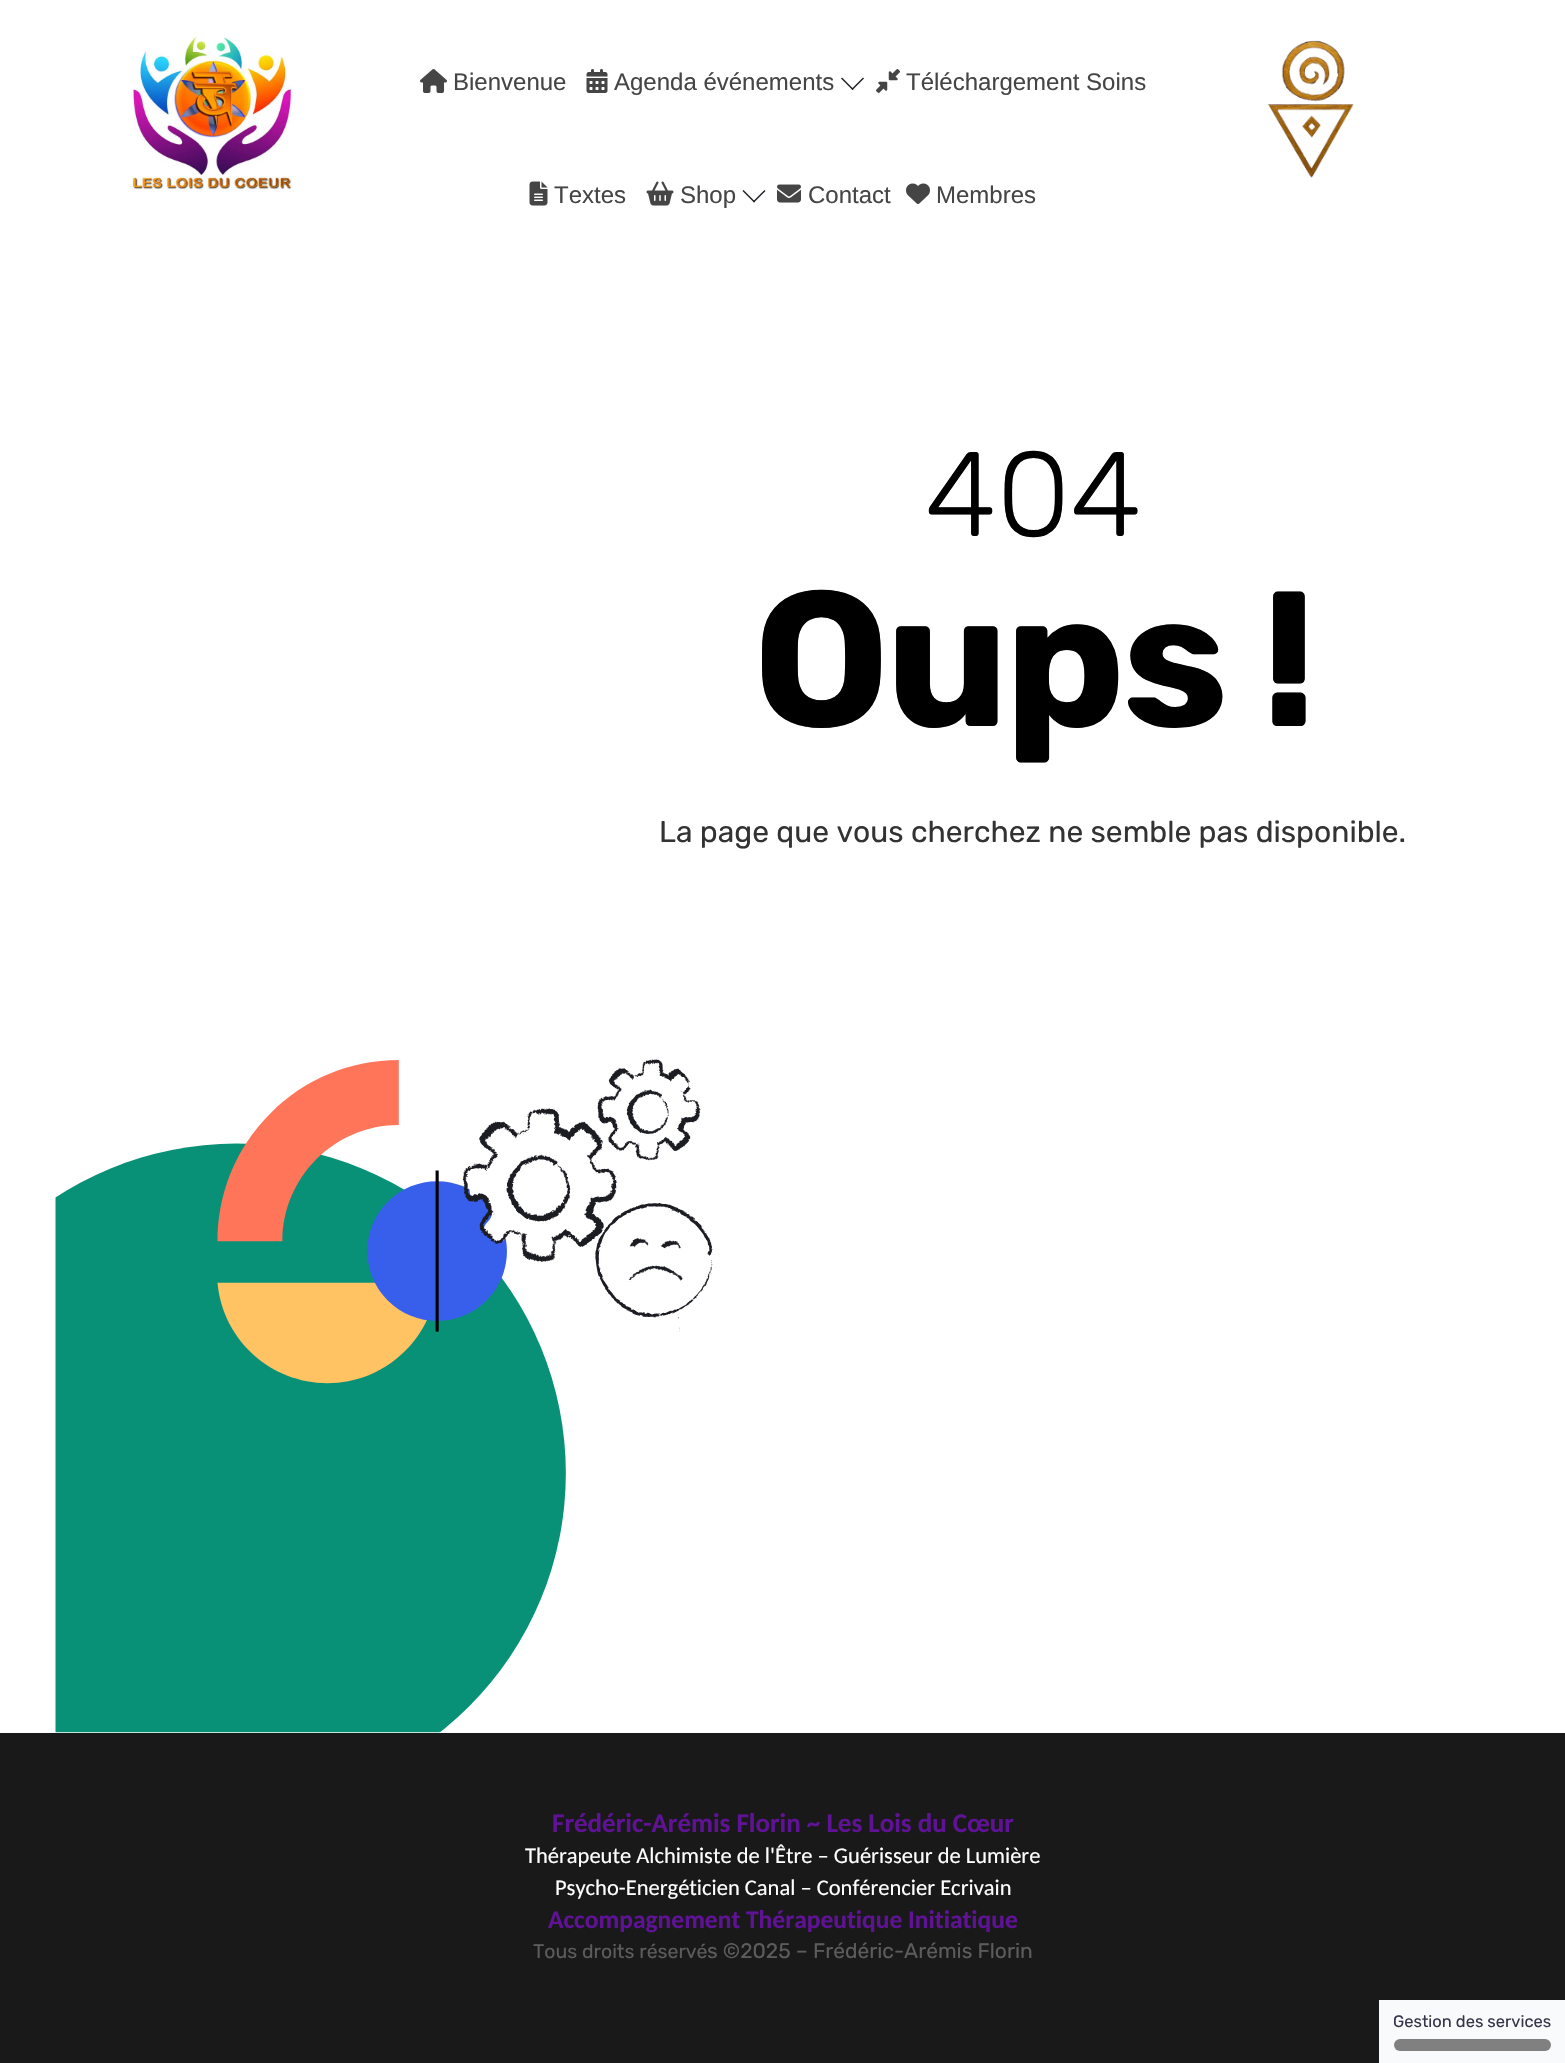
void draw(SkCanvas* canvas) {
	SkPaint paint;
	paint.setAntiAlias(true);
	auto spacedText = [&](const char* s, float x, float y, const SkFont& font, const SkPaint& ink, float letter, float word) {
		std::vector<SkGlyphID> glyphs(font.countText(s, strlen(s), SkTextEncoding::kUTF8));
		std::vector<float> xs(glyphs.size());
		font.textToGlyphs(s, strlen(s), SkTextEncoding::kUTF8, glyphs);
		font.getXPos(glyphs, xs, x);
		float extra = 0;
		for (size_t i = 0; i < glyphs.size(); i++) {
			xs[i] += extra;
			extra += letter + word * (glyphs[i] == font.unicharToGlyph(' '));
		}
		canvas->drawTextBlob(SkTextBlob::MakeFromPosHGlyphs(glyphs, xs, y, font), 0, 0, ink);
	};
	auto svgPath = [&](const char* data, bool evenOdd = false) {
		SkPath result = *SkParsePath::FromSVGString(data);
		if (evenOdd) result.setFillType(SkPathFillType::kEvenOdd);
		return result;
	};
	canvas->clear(0xffffffff);
	canvas->drawImageRect(SkImages::DeferredFromEncodedData(SkData::MakeFromFileName("img1.png")), SkRect::MakeXYWH(132, 34, 161, 156), SkSamplingOptions());
	canvas->drawImageRect(SkImages::DeferredFromEncodedData(SkData::MakeFromFileName("img2.png")), SkRect::MakeXYWH(420, 69, 27, 24), SkSamplingOptions());
	SkFont f1(fontMgr->matchFamilyStyle("Liberation Sans", SkFontStyle::Normal()), 24);
	f1.setSubpixel(true);
	paint.setColor(0xff454545);
	canvas->drawString("Bienvenue", 453, 90, f1, paint);
	canvas->drawImageRect(SkImages::DeferredFromEncodedData(SkData::MakeFromFileName("img3.png")), SkRect::MakeXYWH(586, 69, 22, 24), SkSamplingOptions());
	canvas->drawString("Agenda événements", 614, 90, f1, paint);
	paint.setColor(0xff1c1d23);
	canvas->drawPath(svgPath("M863 77.5L864 78.5L852.5 90L851.5 89Z"), paint);
	canvas->drawPath(svgPath("M842 77.5L853.5 89L852.5 90L841 78.5Z"), paint);
	canvas->drawImageRect(SkImages::DeferredFromEncodedData(SkData::MakeFromFileName("img4.png")), SkRect::MakeXYWH(876, 69, 24, 24), SkSamplingOptions());
	paint.setColor(0xff454545);
	canvas->drawString("Téléchargement Soins", 906, 90, f1, paint);
	canvas->drawImageRect(SkImages::DeferredFromEncodedData(SkData::MakeFromFileName("img5.png")), SkRect::MakeXYWH(529, 181, 19, 25), SkSamplingOptions());
	canvas->drawString("Textes", 554, 203, f1, paint);
	canvas->drawImageRect(SkImages::DeferredFromEncodedData(SkData::MakeFromFileName("img6.png")), SkRect::MakeXYWH(646, 181, 28, 25), SkSamplingOptions());
	canvas->drawString("Shop", 680, 203, f1, paint);
	paint.setColor(0xff1c1d23);
	canvas->drawPath(svgPath("M764.5 190L765.5 191L754 202.5L753 201.5Z"), paint);
	canvas->drawPath(svgPath("M743.5 190L755 201.5L754 202.5L742.5 191Z"), paint);
	canvas->drawImageRect(SkImages::DeferredFromEncodedData(SkData::MakeFromFileName("img7.png")), SkRect::MakeXYWH(777, 184, 24, 19), SkSamplingOptions());
	paint.setColor(0xff454545);
	canvas->drawString("Contact", 808, 203, f1, paint);
	canvas->drawImageRect(SkImages::DeferredFromEncodedData(SkData::MakeFromFileName("img8.png")), SkRect::MakeXYWH(906, 183, 24, 21), SkSamplingOptions());
	canvas->drawString("Membres", 936, 203, f1, paint);
	canvas->drawImageRect(SkImages::DeferredFromEncodedData(SkData::MakeFromFileName("img9.png")), SkRect::MakeXYWH(1267, 40, 87, 138), SkSamplingOptions());
	SkFont f2(fontMgr->matchFamilyStyle("Rubik", SkFontStyle(300, SkFontStyle::kNormal_Width, SkFontStyle::kUpright_Slant)), 120);
	f2.setSubpixel(true);
	paint.setColor(0xff000000);
	canvas->drawString("404", 925, 536, f2, paint);
	SkFont f3(fontMgr->matchFamilyStyle("Rubik", SkFontStyle::Bold()), 192);
	f3.setSubpixel(true);
	spacedText("Oups !", 753, 726, f3, paint, -4, 0);
	SkFont f4(fontMgr->matchFamilyStyle("Rubik", SkFontStyle::Normal()), 30);
	f4.setSubpixel(true);
	paint.setColor(0xff333333);
	canvas->drawString("La page que vous cherchez ne semble pas disponible.", 659, 842, f4, paint);
	canvas->drawImageRect(SkImages::DeferredFromEncodedData(SkData::MakeFromFileName("img10.png")), SkRect::MakeXYWH(55, 1059, 665, 674), SkSamplingOptions());
	paint.setColor(0xff191919);
	canvas->drawRect(SkRect::MakeXYWH(0, 1733, 1565, 330), paint);
	SkFont f5(fontMgr->matchFamilyStyle("Carlito", SkFontStyle::Bold()), 27);
	f5.setSubpixel(true);
	paint.setColor(0xff5f1296);
	canvas->drawString("Frédéric-Arémis Florin ~ Les Lois du Cœur", 552, 1832, f5, paint);
	SkFont f6(fontMgr->matchFamilyStyle("Carlito", SkFontStyle::Normal()), 22.5);
	f6.setSubpixel(true);
	paint.setColor(0xffffffff);
	canvas->drawString("Thérapeute Alchimiste de l'Être – Guérisseur de Lumière", 525, 1863, f6, paint);
	canvas->drawString("Psycho-Energéticien Canal – Conférencier Ecrivain", 555, 1895, f6, paint);
	SkFont f7(fontMgr->matchFamilyStyle("Carlito", SkFontStyle::Bold()), 25.5);
	f7.setSubpixel(true);
	paint.setColor(0xff5f1296);
	canvas->drawString("Accompagnement Thérapeutique Initiatique", 548, 1928, f7, paint);
	SkFont f8(fontMgr->matchFamilyStyle("Rubik", SkFontStyle::Normal()), 19.5);
	f8.setSubpixel(true);
	paint.setColor(0xff5c5c5c);
	canvas->drawString("Tous droits réservé", 533, 1958, f8, paint);
	SkFont f9(fontMgr->matchFamilyStyle("Rubik", SkFontStyle::Normal()), 21);
	f9.setSubpixel(true);
	canvas->drawString("s ©2025 – Frédéric-Arémis Florin", 707, 1958, f9, paint);
	paint.setColor(0xfff9fafb);
	canvas->drawRect(SkRect::MakeXYWH(1379, 2000, 186, 63), paint);
	SkFont f10(fontMgr->matchFamilyStyle("Rubik", SkFontStyle::Normal()), 16.5);
	f10.setSubpixel(true);
	paint.setColor(0xff34364b);
	canvas->drawString("Gestion des services", 1393, 2027, f10, paint);
	paint.setColor(0xff808080);
	canvas->drawRoundRect(SkRect::MakeXYWH(1394, 2039, 157, 12), 6, 6, paint);
}
